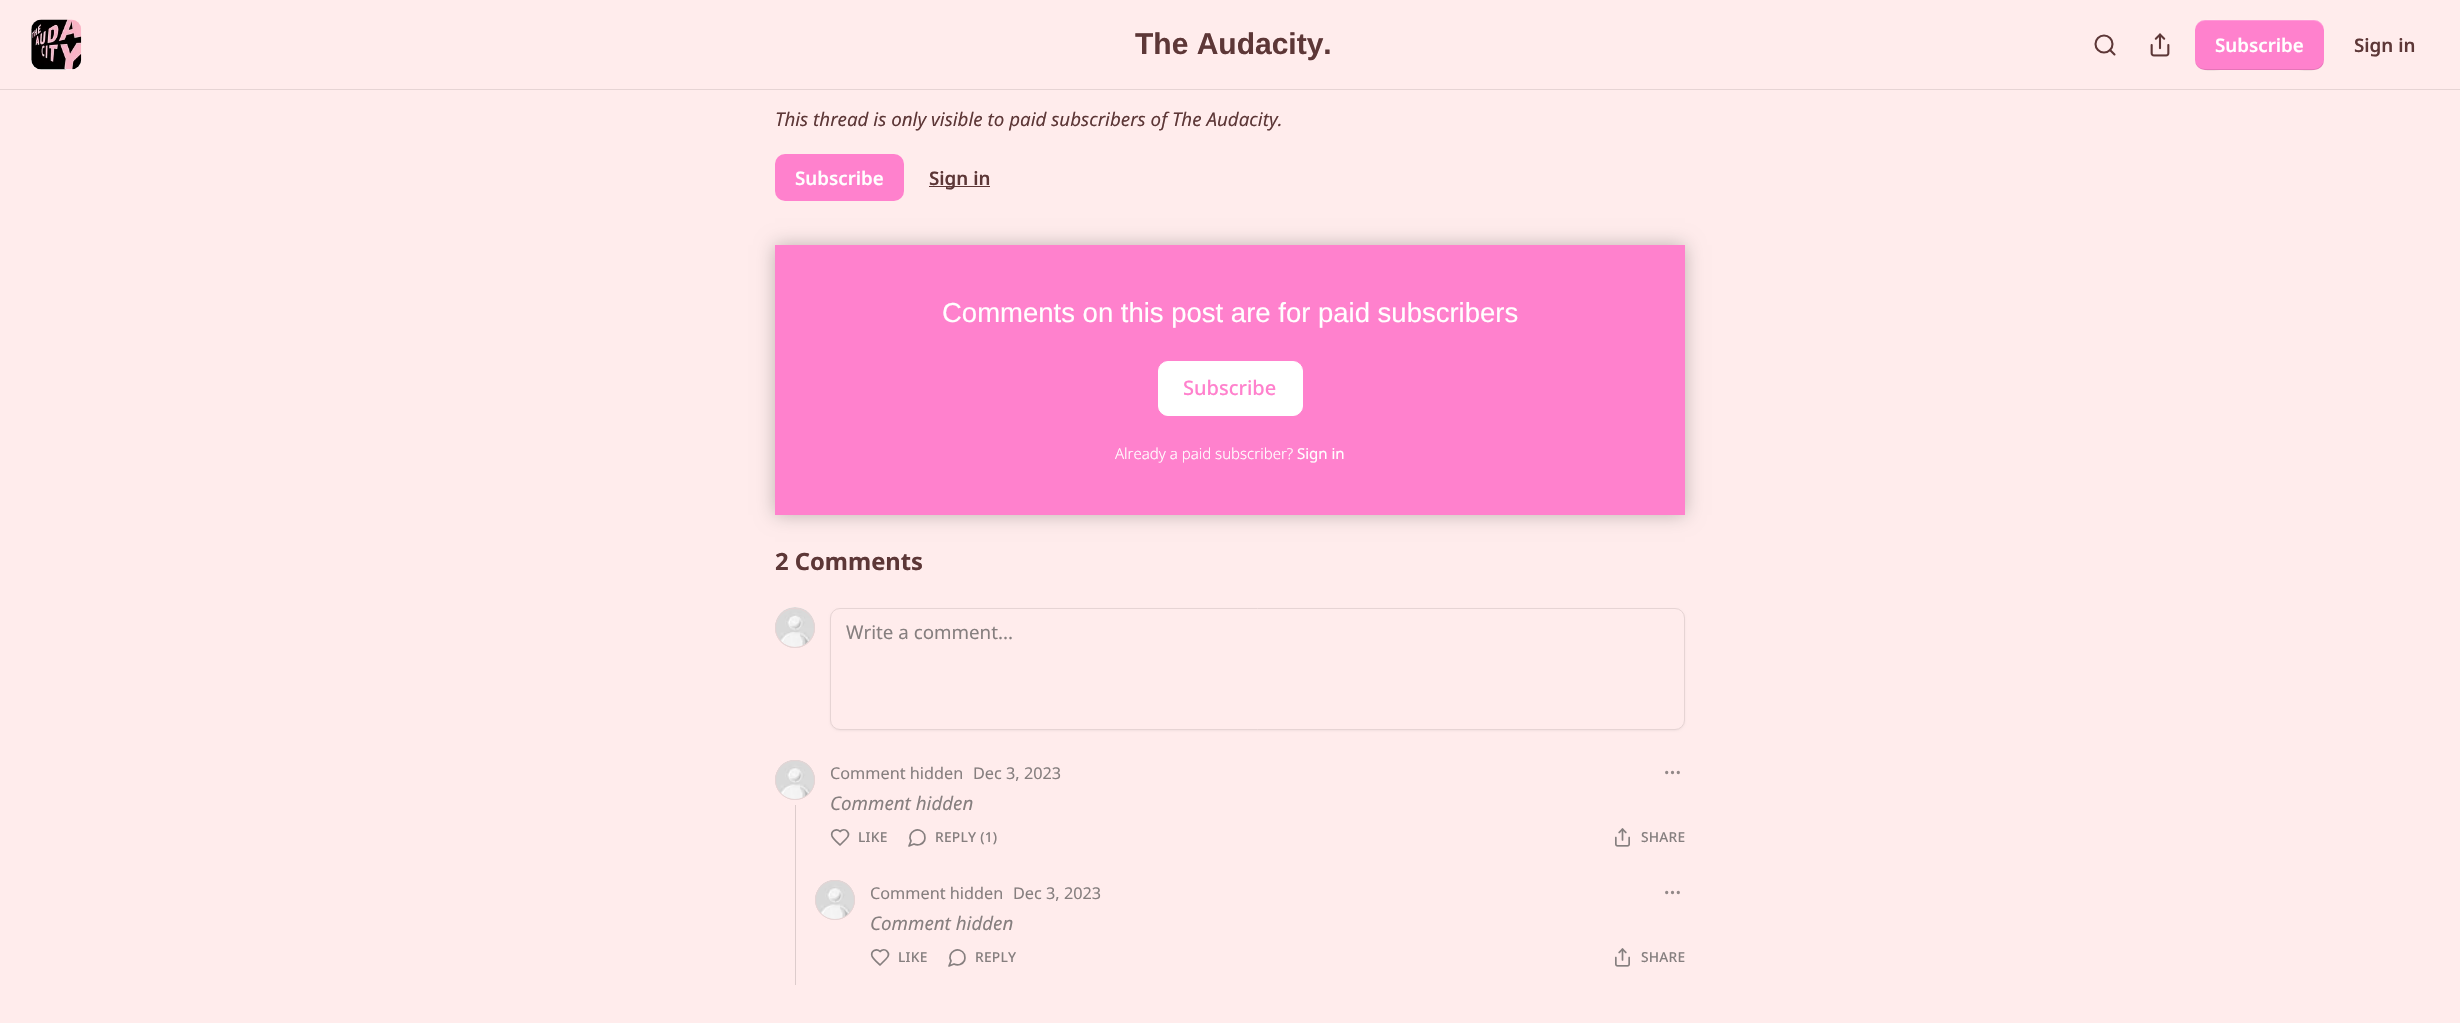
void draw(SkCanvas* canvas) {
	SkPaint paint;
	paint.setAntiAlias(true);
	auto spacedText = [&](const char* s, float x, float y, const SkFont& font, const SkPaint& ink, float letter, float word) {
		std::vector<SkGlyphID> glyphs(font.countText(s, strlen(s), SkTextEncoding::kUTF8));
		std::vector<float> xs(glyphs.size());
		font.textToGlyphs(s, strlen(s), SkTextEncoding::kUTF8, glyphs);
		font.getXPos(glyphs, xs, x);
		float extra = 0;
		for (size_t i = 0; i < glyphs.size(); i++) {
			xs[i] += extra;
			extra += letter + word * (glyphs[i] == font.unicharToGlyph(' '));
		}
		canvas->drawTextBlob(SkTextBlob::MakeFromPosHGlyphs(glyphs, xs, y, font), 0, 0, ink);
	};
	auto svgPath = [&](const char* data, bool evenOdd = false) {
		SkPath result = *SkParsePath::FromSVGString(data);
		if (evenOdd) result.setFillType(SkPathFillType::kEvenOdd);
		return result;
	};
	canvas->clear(0xffffecec);
	paint.setColor(0xffe6d4d4);
	canvas->drawRect(SkRect::MakeXYWH(0, 89, 2460, 1), paint);
	paint.setColor(0xffffffff);
	canvas->drawRoundRect(SkRect::MakeXYWH(31, 20, 50, 50), 10, 10, paint);
	canvas->drawImageRect(SkImages::DeferredFromEncodedData(SkData::MakeFromFileName("img1.png")), SkRect::MakeXYWH(31, 19, 51, 51), SkSamplingOptions());
	SkFont f1(fontMgr->matchFamilyStyle("Liberation Sans", SkFontStyle::Bold()), 30);
	f1.setSubpixel(true);
	paint.setColor(0xff5d3737);
	canvas->drawString("The Audacity.", 1135, 54, f1, paint);
	paint.setStroke(true);
	paint.setStrokeWidth(2.1);
	canvas->drawCircle(2104, 44, 8.5, paint);
	paint.setStrokeCap(SkPaint::kRound_Cap);
	paint.setStrokeJoin(SkPaint::kRound_Join);
	canvas->drawPath(svgPath("M2114.5 54.5L2110 50"), paint);
	canvas->drawImageRect(SkImages::DeferredFromEncodedData(SkData::MakeFromFileName("img2.png")), SkRect::MakeXYWH(2150, 33, 20, 24), SkSamplingOptions());
	paint.setStroke(false);
	paint.setColor(0xffff81cd);
	canvas->drawRoundRect(SkRect::MakeXYWH(2195, 20, 129, 50), 10, 10, paint);
	paint.setColor(0x1a000000);
	canvas->drawPath(svgPath("M2195 59C2195 74 2213 70 2223 70H2296C2306 70 2324 74 2324 59C2324 64 2319 69 2314 69H2205C2199 69 2195 64 2195 59Z"), paint);
	paint.setColor(0x33ffffff);
	canvas->drawPath(svgPath("M2205 21H2314C2319 21 2324 26 2324 31C2324 16 2306 20 2296 20H2223C2213 20 2195 16 2195 31C2195 26 2199 21 2205 21Z"), paint);
	SkFont f2(fontMgr->matchFamilyStyle("Noto Sans", SkFontStyle(600, SkFontStyle::kNormal_Width, SkFontStyle::kUpright_Slant)), 18.75);
	f2.setSubpixel(true);
	paint.setColor(0xffffffff);
	canvas->drawString("Subscribe", 2215, 52, f2, paint);
	paint.setColor(0xff5d3737);
	canvas->drawString("Sign in", 2354, 52, f2, paint);
	SkFont f3(fontMgr->matchFamilyStyle("Noto Sans", SkFontStyle::Italic()), 18.75);
	f3.setSubpixel(true);
	canvas->drawString("This thread is only visible to paid subscribers of The Audacity.", 775, 126, f3, paint);
	paint.setColor(0xffff81cd);
	canvas->drawRoundRect(SkRect::MakeXYWH(775, 154, 129, 47), 10, 10, paint);
	paint.setColor(0xffffffff);
	canvas->drawString("Subscribe", 795, 185, f2, paint);
	paint.setColor(0xff5d3737);
	canvas->drawRect(SkRect::MakeXYWH(929, 186, 61, 1), paint);
	canvas->drawString("Sign in", 929, 185, f2, paint);
	paint.setColor(0xffff81cd);
	canvas->drawRect(SkRect::MakeXYWH(775, 245, 910, 270), paint);
	paint.setColor(0xffffffff);
	canvas->drawRoundRect(SkRect::MakeXYWH(1158.5, 361.5, 144, 54), 9.5, 9.5, paint);
	paint.setStroke(true);
	paint.setStrokeWidth(1);
	paint.setStrokeCap(SkPaint::kButt_Cap);
	paint.setStrokeJoin(SkPaint::kMiter_Join);
	canvas->drawRoundRect(SkRect::MakeXYWH(1158.5, 361.5, 144, 54), 9.5, 9.5, paint);
	canvas->save();
	canvas->clipPath(svgPath("M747 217H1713V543H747ZM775 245H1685V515H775Z", true), true);
	paint.setStroke(false);
	paint.setColor(0x40000000);
	paint.setMaskFilter(SkMaskFilter::MakeBlur(kNormal_SkBlurStyle, 9));
	canvas->drawRect(SkRect::MakeXYWH(775, 245, 910, 270), paint);
	paint.setMaskFilter(nullptr);
	canvas->restore();
	SkFont f4(fontMgr->matchFamilyStyle("Liberation Sans", SkFontStyle::Normal()), 27.5);
	f4.setSubpixel(true);
	paint.setColor(0xffffffff);
	canvas->drawString("Comments on this post are for paid subscribers", 942, 322, f4, paint);
	SkFont f5(fontMgr->matchFamilyStyle("Noto Sans", SkFontStyle(500, SkFontStyle::kNormal_Width, SkFontStyle::kUpright_Slant)), 20);
	f5.setSubpixel(true);
	paint.setColor(0xffff81cd);
	canvas->drawString("Subscribe", 1183, 395, f5, paint);
	SkFont f6(fontMgr->matchFamilyStyle("Noto Sans", SkFontStyle(300, SkFontStyle::kNormal_Width, SkFontStyle::kUpright_Slant)), 15);
	f6.setSubpixel(true);
	paint.setColor(0xffffffff);
	canvas->drawString("Already a paid subscriber?", 1115, 459, f6, paint);
	SkFont f7(fontMgr->matchFamilyStyle("Noto Sans", SkFontStyle::Normal()), 15);
	f7.setSubpixel(true);
	canvas->drawString("Sign in", 1297, 459, f7, paint);
	SkFont f8(fontMgr->matchFamilyStyle("Noto Sans", SkFontStyle::Bold()), 23.75);
	f8.setSubpixel(true);
	paint.setColor(0xff5d3737);
	canvas->drawString("2 Comments", 775, 570, f8, paint);
	paint.setStroke(true);
	paint.setColor(0xffe6d4d4);
	canvas->drawCircle(795, 628, 19.5, paint);
	paint.setStroke(false);
	paint.setColor(0xfff0dede);
	canvas->drawCircle(795, 628, 20, paint);
	canvas->drawImageRect(SkImages::DeferredFromEncodedData(SkData::MakeFromFileName("img3.png")), SkRect::MakeXYWH(775, 607, 40, 40), SkSamplingOptions());
	paint.setStroke(true);
	paint.setColor(0xffe6d4d4);
	canvas->drawCircle(795, 628, 19.5, paint);
	paint.setStroke(false);
	paint.setColor(0x0d000000);
	paint.setMaskFilter(SkMaskFilter::MakeBlur(kNormal_SkBlurStyle, 1));
	canvas->drawRoundRect(SkRect::MakeXYWH(830, 609, 855, 122), 10, 10, paint);
	paint.setMaskFilter(nullptr);
	paint.setColor(0xffffecec);
	canvas->drawRoundRect(SkRect::MakeXYWH(830.5, 608.5, 854, 121), 9.5, 9.5, paint);
	paint.setStroke(true);
	paint.setColor(0xffe6d4d4);
	canvas->drawRoundRect(SkRect::MakeXYWH(830.5, 608.5, 854, 121), 9.5, 9.5, paint);
	SkFont f9(fontMgr->matchFamilyStyle("Noto Sans", SkFontStyle::Normal()), 18.75);
	f9.setSubpixel(true);
	paint.setStroke(false);
	paint.setColor(0xff867f7f);
	canvas->drawString("Write a comment...", 846, 639, f9, paint);
	paint.setColor(0xffddcccc);
	canvas->drawRect(SkRect::MakeXYWH(795, 805, 1, 180), paint);
	paint.setStroke(true);
	paint.setColor(0xffe6d4d4);
	canvas->drawCircle(795, 780, 19.5, paint);
	canvas->drawImageRect(SkImages::DeferredFromEncodedData(SkData::MakeFromFileName("img4.png")), SkRect::MakeXYWH(775, 760, 40, 39), SkSamplingOptions());
	canvas->drawCircle(795, 780, 19.5, paint);
	SkFont f10(fontMgr->matchFamilyStyle("Noto Sans", SkFontStyle::Normal()), 16.25);
	f10.setSubpixel(true);
	paint.setStroke(false);
	paint.setColor(0xff867f7f);
	canvas->drawString("Comment hidden", 830, 779, f10, paint);
	canvas->drawString("Dec 3, 2023", 973, 779, f10, paint);
	paint.setStroke(true);
	paint.setStrokeWidth(1.7);
	paint.setColor(0xff928888);
	canvas->drawCircle(1672.5, 772.5, 0.8, paint);
	canvas->drawCircle(1678.3, 772.5, 0.8, paint);
	canvas->drawCircle(1666.7, 772.5, 0.8, paint);
	paint.setStroke(false);
	paint.setColor(0xff867f7f);
	canvas->drawString("Comment hidden", 830, 810, f3, paint);
	paint.setStroke(true);
	paint.setStrokeCap(SkPaint::kRound_Cap);
	paint.setStrokeJoin(SkPaint::kRound_Join);
	canvas->drawPath(svgPath("M846 839C852 833 845 827 840 831.5C836.5 828 830.5 831 832 836C833 839 838 843 840 845Z"), paint);
	SkFont f11(fontMgr->matchFamilyStyle("Noto Sans", SkFontStyle(500, SkFontStyle::kNormal_Width, SkFontStyle::kUpright_Slant)), 13.75);
	f11.setSubpixel(true);
	paint.setStroke(false);
	spacedText("LIKE", 858, 842, f11, paint, 0.25, 0);
	paint.setStroke(true);
	canvas->drawPath(svgPath("M914 844C918 846 922.5 844.5 924.5 840.5C925 839 925 836.5 924.5 834.5C920 825 906 832 911 841L909 846Z"), paint);
	paint.setStroke(false);
	spacedText("REPLY (1)", 935, 842, f11, paint, 0.25, 0);
	canvas->drawImageRect(SkImages::DeferredFromEncodedData(SkData::MakeFromFileName("img5.png")), SkRect::MakeXYWH(1615, 828, 15, 19), SkSamplingOptions());
	spacedText("SHARE", 1641, 842, f11, paint, 0.25, 0);
	paint.setStroke(true);
	paint.setStrokeWidth(1);
	paint.setStrokeCap(SkPaint::kButt_Cap);
	paint.setStrokeJoin(SkPaint::kMiter_Join);
	paint.setColor(0xffe6d4d4);
	canvas->drawCircle(835, 900, 19.5, paint);
	canvas->drawImageRect(SkImages::DeferredFromEncodedData(SkData::MakeFromFileName("img4.png")), SkRect::MakeXYWH(815, 880, 40, 39), SkSamplingOptions());
	canvas->drawCircle(835, 900, 19.5, paint);
	paint.setStroke(false);
	paint.setColor(0xff867f7f);
	canvas->drawString("Comment hidden", 870, 899, f10, paint);
	canvas->drawString("Dec 3, 2023", 1013, 899, f10, paint);
	paint.setStroke(true);
	paint.setStrokeWidth(1.7);
	paint.setColor(0xff928888);
	canvas->drawCircle(1672.5, 892.5, 0.8, paint);
	canvas->drawCircle(1678.3, 892.5, 0.8, paint);
	canvas->drawCircle(1666.7, 892.5, 0.8, paint);
	paint.setStroke(false);
	paint.setColor(0xff867f7f);
	canvas->drawString("Comment hidden", 870, 930, f3, paint);
	paint.setStroke(true);
	paint.setStrokeCap(SkPaint::kRound_Cap);
	paint.setStrokeJoin(SkPaint::kRound_Join);
	canvas->drawPath(svgPath("M886 959C892 953 885 947 880 951.5C876.5 948 870.5 951 872 956C873 959 878 963 880 965Z"), paint);
	paint.setStroke(false);
	spacedText("LIKE", 898, 962, f11, paint, 0.25, 0);
	paint.setStroke(true);
	canvas->drawPath(svgPath("M954 964C958 966 962.5 964.5 964.5 960.5C965 959 965 956.5 964.5 954.5C960 945 946 952 951 961L949 966Z"), paint);
	paint.setStroke(false);
	spacedText("REPLY", 975, 962, f11, paint, 0.25, 0);
	canvas->drawImageRect(SkImages::DeferredFromEncodedData(SkData::MakeFromFileName("img5.png")), SkRect::MakeXYWH(1615, 948, 15, 19), SkSamplingOptions());
	spacedText("SHARE", 1641, 962, f11, paint, 0.25, 0);
}
